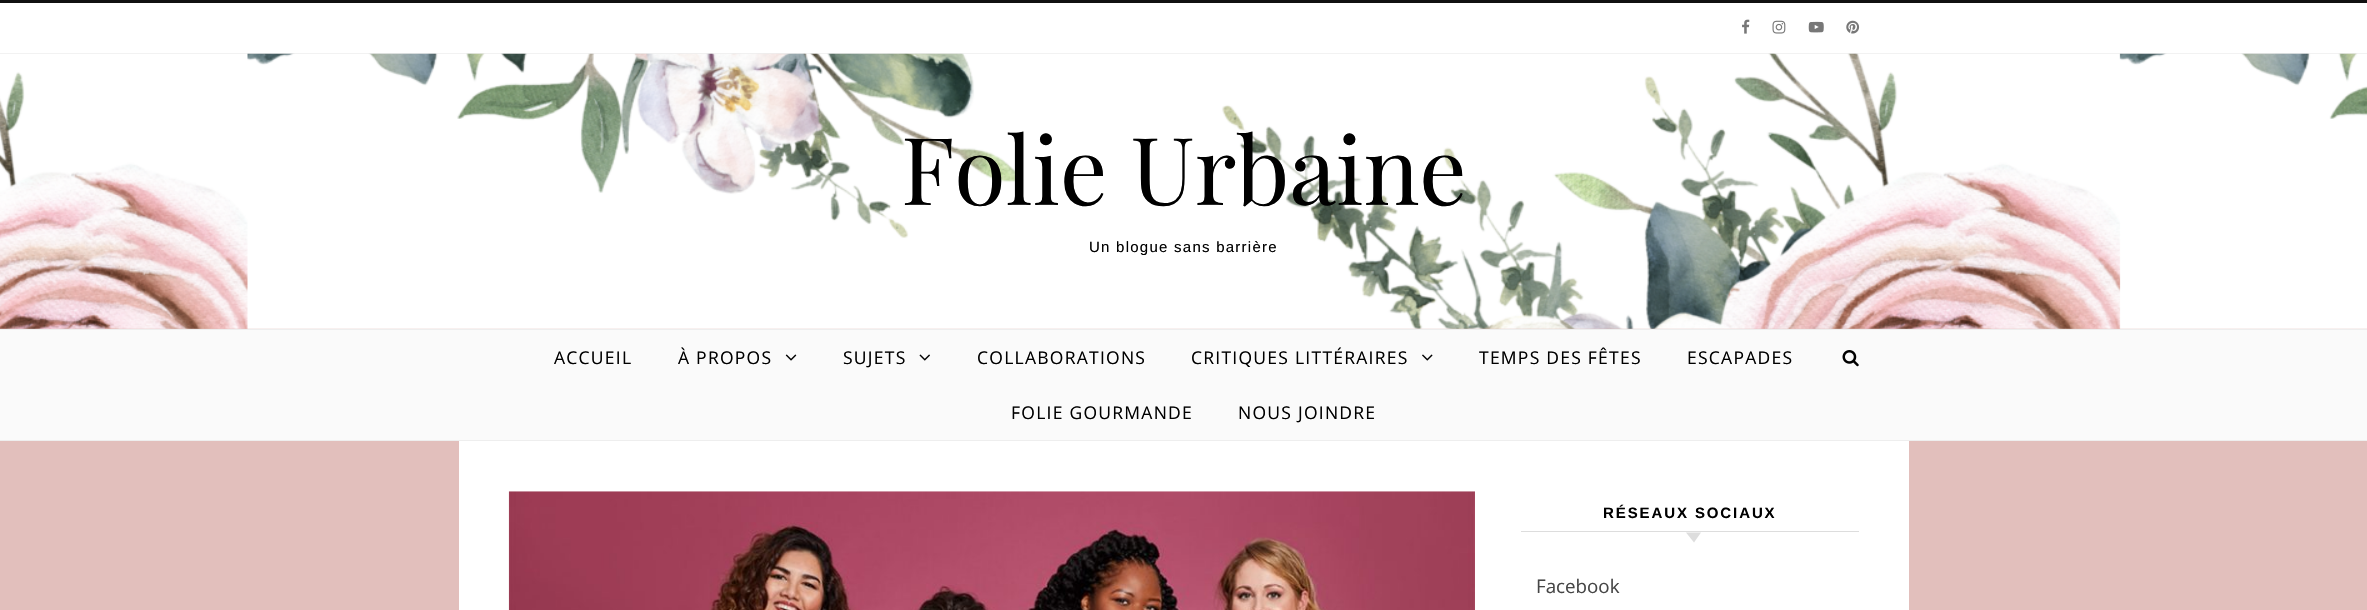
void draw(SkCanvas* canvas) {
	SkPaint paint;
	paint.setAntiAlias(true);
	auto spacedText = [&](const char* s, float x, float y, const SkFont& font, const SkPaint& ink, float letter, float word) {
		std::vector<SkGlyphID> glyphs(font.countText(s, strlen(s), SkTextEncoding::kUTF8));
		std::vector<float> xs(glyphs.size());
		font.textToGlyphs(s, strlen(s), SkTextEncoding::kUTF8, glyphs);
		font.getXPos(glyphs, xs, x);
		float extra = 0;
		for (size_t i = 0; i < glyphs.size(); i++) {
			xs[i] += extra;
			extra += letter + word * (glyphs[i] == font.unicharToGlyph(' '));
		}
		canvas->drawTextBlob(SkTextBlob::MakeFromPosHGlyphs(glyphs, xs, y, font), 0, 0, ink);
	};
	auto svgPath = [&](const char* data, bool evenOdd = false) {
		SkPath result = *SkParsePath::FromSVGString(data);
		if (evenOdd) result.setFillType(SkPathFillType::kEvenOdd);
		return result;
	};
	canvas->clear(0xffe2bfbc);
	paint.setColor(0xff111111);
	canvas->drawRect(SkRect::MakeXYWH(0, 0, 2367, 3), paint);
	paint.setColor(0x1a000000);
	paint.setMaskFilter(SkMaskFilter::MakeBlur(kNormal_SkBlurStyle, 3));
	canvas->drawRect(SkRect::MakeXYWH(0, 4, 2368, 51), paint);
	paint.setMaskFilter(nullptr);
	paint.setColor(0xffffffff);
	canvas->drawRect(SkRect::MakeXYWH(0, 3, 2367, 50), paint);
	paint.setColor(0xffeeeeee);
	canvas->drawRect(SkRect::MakeXYWH(0, 53, 2367, 1), paint);
	canvas->drawImageRect(SkImages::DeferredFromEncodedData(SkData::MakeFromFileName("img1.png")), SkRect::MakeXYWH(1742, 19, 8, 15), SkSamplingOptions());
	canvas->drawImageRect(SkImages::DeferredFromEncodedData(SkData::MakeFromFileName("img2.png")), SkRect::MakeXYWH(1772, 20, 14, 14), SkSamplingOptions());
	canvas->drawImageRect(SkImages::DeferredFromEncodedData(SkData::MakeFromFileName("img3.png")), SkRect::MakeXYWH(1808, 21, 16, 12), SkSamplingOptions());
	canvas->drawImageRect(SkImages::DeferredFromEncodedData(SkData::MakeFromFileName("img4.png")), SkRect::MakeXYWH(1846, 20, 14, 14), SkSamplingOptions());
	canvas->drawImageRect(SkImages::DeferredFromEncodedData(SkData::MakeFromFileName("img5.png")), SkRect::MakeXYWH(0, 53, 2367, 276), SkSamplingOptions());
	SkFont f1(fontMgr->matchFamilyStyle("Playfair Display", SkFontStyle::Normal()), 93.75);
	f1.setSubpixel(true);
	paint.setColor(0xff000000);
	canvas->drawString("Folie Urbaine", 901, 205, f1, paint);
	SkFont f2(fontMgr->matchFamilyStyle("Liberation Sans", SkFontStyle::Normal()), 15);
	f2.setSubpixel(true);
	spacedText("Un blogue sans barrière", 1089, 252, f2, paint, 1.25, 0);
	paint.setColor(0xfffafafa);
	canvas->drawRect(SkRect::MakeXYWH(0, 330, 2367, 110), paint);
	paint.setColor(0xffeeeeee);
	canvas->drawRect(SkRect::MakeXYWH(0, 329, 2367, 1), paint);
	canvas->drawRect(SkRect::MakeXYWH(0, 440, 2367, 1), paint);
	SkFont f3(fontMgr->matchFamilyStyle("Open Sans", SkFontStyle::Normal()), 17.5);
	f3.setSubpixel(true);
	paint.setColor(0xff000000);
	spacedText("ACCUEIL", 554, 364, f3, paint, 1.25, 0);
	spacedText("À PROPOS", 678, 364, f3, paint, 1.25, 0);
	canvas->drawImageRect(SkImages::DeferredFromEncodedData(SkData::MakeFromFileName("img6.png")), SkRect::MakeXYWH(785, 354, 12, 7), SkSamplingOptions());
	spacedText("SUJETS", 843, 364, f3, paint, 1.25, 0);
	canvas->drawImageRect(SkImages::DeferredFromEncodedData(SkData::MakeFromFileName("img7.png")), SkRect::MakeXYWH(919, 354, 11, 7), SkSamplingOptions());
	spacedText("COLLABORATIONS", 977, 364, f3, paint, 1.25, 0);
	spacedText("CRITIQUES LITTÉRAIRES", 1191, 364, f3, paint, 1.25, 0);
	canvas->drawImageRect(SkImages::DeferredFromEncodedData(SkData::MakeFromFileName("img8.png")), SkRect::MakeXYWH(1422, 354, 11, 7), SkSamplingOptions());
	spacedText("TEMPS DES FÊTES", 1479, 364, f3, paint, 1.25, 0);
	spacedText("ESCAPADES", 1687, 364, f3, paint, 1.25, 0);
	spacedText("FOLIE GOURMANDE", 1011, 419, f3, paint, 1.25, 0);
	spacedText("NOUS JOINDRE", 1238, 419, f3, paint, 1.25, 0);
	canvas->drawImageRect(SkImages::DeferredFromEncodedData(SkData::MakeFromFileName("img9.png")), SkRect::MakeXYWH(1842, 350, 17, 17), SkSamplingOptions());
	paint.setColor(0xffffffff);
	canvas->drawRect(SkRect::MakeXYWH(459, 441, 1450, 169), paint);
	canvas->drawImageRect(SkImages::DeferredFromEncodedData(SkData::MakeFromFileName("img10.png")), SkRect::MakeXYWH(508, 491, 967, 119), SkSamplingOptions());
	paint.setColor(0xffdddddd);
	canvas->drawRect(SkRect::MakeXYWH(1521, 531, 338, 1), paint);
	SkFont f4(fontMgr->matchFamilyStyle("Liberation Sans", SkFontStyle::Bold()), 15);
	f4.setSubpixel(true);
	paint.setColor(0xff000000);
	spacedText("RÉSEAUX SOCIAUX", 1603, 518, f4, paint, 1.9, 0);
	paint.setColor(0xffdddddd);
	canvas->drawPath(svgPath("M1686 532.5H1701L1694 542.5Z"), paint);
	SkFont f5(fontMgr->matchFamilyStyle("Open Sans", SkFontStyle::Normal()), 18.75);
	f5.setSubpixel(true);
	paint.setColor(0xff464646);
	canvas->drawString("Facebook", 1536, 593, f5, paint);
}
